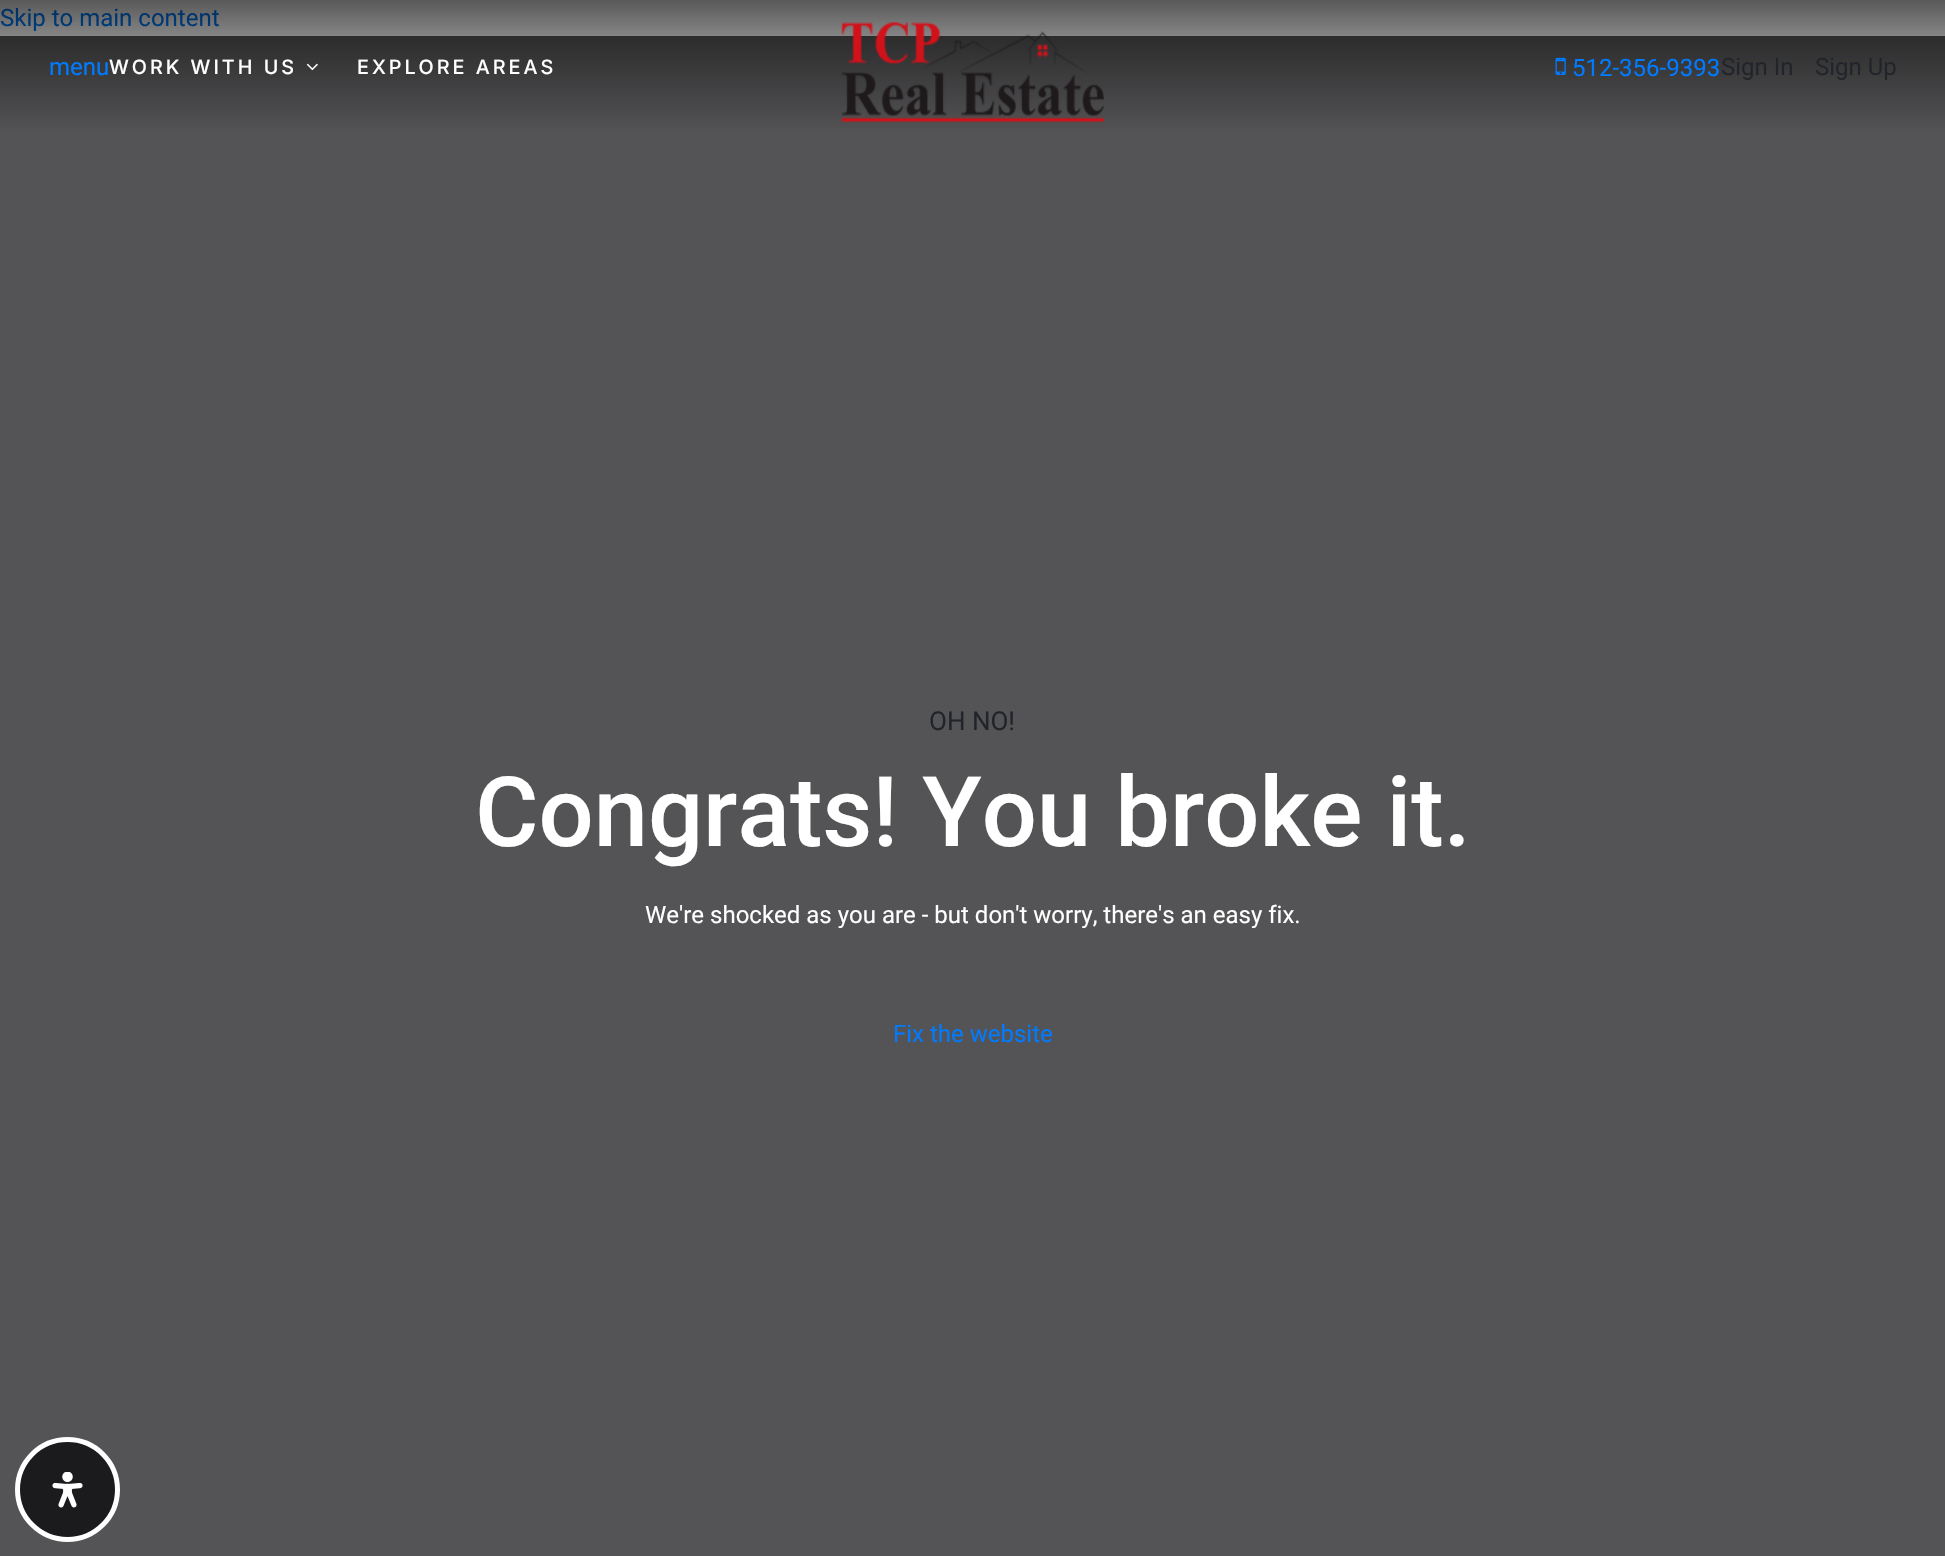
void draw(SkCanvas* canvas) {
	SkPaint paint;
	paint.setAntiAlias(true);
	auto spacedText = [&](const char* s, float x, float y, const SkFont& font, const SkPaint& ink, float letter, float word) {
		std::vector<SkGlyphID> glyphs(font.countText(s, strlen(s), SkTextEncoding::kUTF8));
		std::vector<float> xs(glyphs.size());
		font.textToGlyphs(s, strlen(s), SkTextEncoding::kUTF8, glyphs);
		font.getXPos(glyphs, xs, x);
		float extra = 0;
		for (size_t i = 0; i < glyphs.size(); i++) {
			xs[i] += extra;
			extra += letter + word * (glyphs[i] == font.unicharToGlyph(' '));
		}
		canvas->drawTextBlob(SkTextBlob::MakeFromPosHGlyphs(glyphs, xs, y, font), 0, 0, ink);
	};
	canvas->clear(0xffffffff);
	SkFont f1(fontMgr->matchFamilyStyle("Roboto", SkFontStyle::Normal()), 24);
	f1.setSubpixel(true);
	paint.setColor(0xff007bff);
	canvas->drawString("Skip to main content", 0, 26, f1, paint);
	paint.setColor(0xff545456);
	canvas->drawRect(SkRect::MakeXYWH(0, 36, 1945, 1520), paint);
	{
		const SkColor colors[] = {0xa6000000, 0x00000000};
		const float stops[] = {0, 1};
		const SkPoint ends[] = {{973, 0}, {973, 135}};
		paint.setShader(SkGradientShader::MakeLinear(ends, colors, stops, 2, SkTileMode::kClamp));
		paint.setAlpha(255);
	}
	canvas->drawRect(SkRect::MakeXYWH(0, 0, 1945, 129), paint);
	paint.setShader(nullptr);
	paint.setColor(0xff007bff);
	canvas->drawString("menu", 49, 75, f1, paint);
	SkFont f2(fontMgr->matchFamilyStyle("Inter", SkFontStyle(500, SkFontStyle::kNormal_Width, SkFontStyle::kUpright_Slant)), 19.75);
	f2.setSubpixel(true);
	paint.setColor(0xffffffff);
	spacedText("WORK WITH US", 109, 74, f2, paint, 3, 0);
	canvas->drawImageRect(SkImages::DeferredFromEncodedData(SkData::MakeFromFileName("img1.png")), SkRect::MakeXYWH(306, 63, 12, 8), SkSamplingOptions());
	spacedText("EXPLORE AREAS", 357, 74, f2, paint, 3, 0);
	canvas->drawImageRect(SkImages::DeferredFromEncodedData(SkData::MakeFromFileName("img2.png")), SkRect::MakeXYWH(841, 21, 264, 102), SkSamplingOptions());
	canvas->drawImageRect(SkImages::DeferredFromEncodedData(SkData::MakeFromFileName("img3.png")), SkRect::MakeXYWH(1555, 57, 11, 18), SkSamplingOptions());
	paint.setColor(0xff007bff);
	canvas->drawString("512-356-9393", 1572, 76, f1, paint);
	paint.setColor(0xff212529);
	canvas->drawString("Sign In", 1721, 75, f1, paint);
	canvas->drawString("Sign Up", 1815, 75, f1, paint);
	SkFont f3(fontMgr->matchFamilyStyle("Roboto", SkFontStyle::Normal()), 26);
	f3.setSubpixel(true);
	canvas->drawString("OH NO!", 929, 730, f3, paint);
	SkFont f4(fontMgr->matchFamilyStyle("Roboto", SkFontStyle(500, SkFontStyle::kNormal_Width, SkFontStyle::kUpright_Slant)), 97.3);
	f4.setSubpixel(true);
	paint.setColor(0xffffffff);
	canvas->drawString("Congrats! You broke it.", 475, 846, f4, paint);
	canvas->drawString("We're shocked as you are - but don't worry, there's an easy fix.", 645, 923, f1, paint);
	paint.setColor(0xff007bff);
	canvas->drawString("Fix the website", 893, 1042, f1, paint);
	paint.setColor(0xff1b1b1e);
	canvas->drawCircle(67.5, 1489.5, 50, paint);
	paint.setStroke(true);
	paint.setStrokeWidth(5);
	paint.setColor(0xffffffff);
	canvas->drawCircle(67.5, 1489.5, 50, paint);
	canvas->drawImageRect(SkImages::DeferredFromEncodedData(SkData::MakeFromFileName("img4.png")), SkRect::MakeXYWH(52, 1472, 31, 36), SkSamplingOptions());
}
